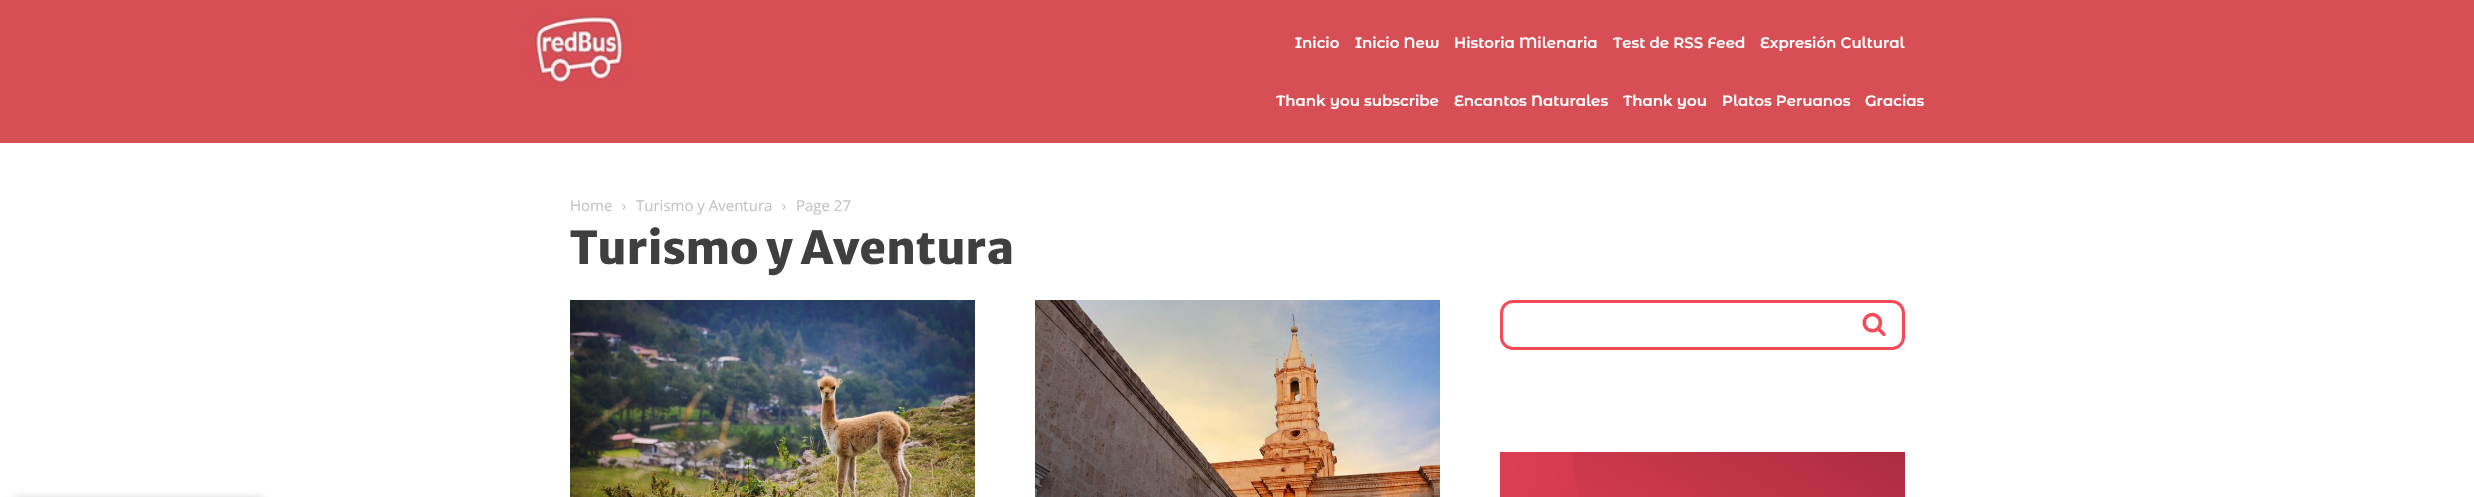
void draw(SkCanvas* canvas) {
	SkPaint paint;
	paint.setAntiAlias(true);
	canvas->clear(0xffffffff);
	paint.setColor(0xffd84e55);
	canvas->drawRect(SkRect::MakeXYWH(0, 0, 2474, 143), paint);
	canvas->drawImageRect(SkImages::DeferredFromEncodedData(SkData::MakeFromFileName("img1.png")), SkRect::MakeXYWH(525, 12, 101, 72), SkSamplingOptions());
	SkFont f1(fontMgr->matchFamilyStyle("Montserrat Alternates", SkFontStyle(600, SkFontStyle::kNormal_Width, SkFontStyle::kUpright_Slant)), 15);
	f1.setSubpixel(true);
	paint.setColor(0xffffffff);
	canvas->drawString("Inicio", 1295, 48, f1, paint);
	canvas->drawString("Inicio New", 1355, 48, f1, paint);
	canvas->drawString("Historia Milenaria", 1454, 48, f1, paint);
	canvas->drawString("Test de RSS Feed", 1613, 48, f1, paint);
	canvas->drawString("Expresión Cultural", 1760, 48, f1, paint);
	canvas->drawString("Thank you subscribe", 1276, 106, f1, paint);
	canvas->drawString("Encantos Naturales", 1454, 106, f1, paint);
	canvas->drawString("Thank you", 1623, 106, f1, paint);
	canvas->drawString("Platos Peruanos", 1722, 106, f1, paint);
	canvas->drawString("Gracias", 1865, 106, f1, paint);
	SkFont f2(fontMgr->matchFamilyStyle("Open Sans", SkFontStyle::Normal()), 15);
	f2.setSubpixel(true);
	paint.setColor(0xffc3c3c3);
	canvas->drawString("Home", 570, 211, f2, paint);
	canvas->drawImageRect(SkImages::DeferredFromEncodedData(SkData::MakeFromFileName("img2.png")), SkRect::MakeXYWH(622, 204, 4, 6), SkSamplingOptions());
	canvas->drawString("Turismo y Aventura", 636, 211, f2, paint);
	canvas->drawImageRect(SkImages::DeferredFromEncodedData(SkData::MakeFromFileName("img2.png")), SkRect::MakeXYWH(782, 204, 4, 6), SkSamplingOptions());
	canvas->drawString("Page 27", 796, 211, f2, paint);
	SkFont f3(fontMgr->matchFamilyStyle("Merriweather Sans", SkFontStyle(800, SkFontStyle::kNormal_Width, SkFontStyle::kUpright_Slant)), 45);
	f3.setSubpixel(true);
	paint.setColor(0xff3f3f3f);
	canvas->drawString("Turismo y Aventura", 570, 264, f3, paint);
	canvas->drawImageRect(SkImages::DeferredFromEncodedData(SkData::MakeFromFileName("img3.png")), SkRect::MakeXYWH(570, 300, 405, 197), SkSamplingOptions());
	canvas->drawImageRect(SkImages::DeferredFromEncodedData(SkData::MakeFromFileName("img4.png")), SkRect::MakeXYWH(1035, 300, 405, 197), SkSamplingOptions());
	paint.setStroke(true);
	paint.setStrokeWidth(3);
	paint.setColor(0xfff64a56);
	canvas->drawRoundRect(SkRect::MakeXYWH(1501.5, 301.5, 402, 47), 11.5, 11.5, paint);
	canvas->drawImageRect(SkImages::DeferredFromEncodedData(SkData::MakeFromFileName("img5.png")), SkRect::MakeXYWH(1862, 312, 24, 24), SkSamplingOptions());
	canvas->drawImageRect(SkImages::DeferredFromEncodedData(SkData::MakeFromFileName("img6.png")), SkRect::MakeXYWH(1500, 452, 405, 45), SkSamplingOptions());
	paint.setStroke(false);
	paint.setColor(0x4d000000);
	paint.setMaskFilter(SkMaskFilter::MakeBlur(kNormal_SkBlurStyle, 5));
	canvas->drawRoundRect(SkRect::MakeXYWH(13, 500, 250, 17), 5, 5, paint);
	paint.setMaskFilter(nullptr);
}
